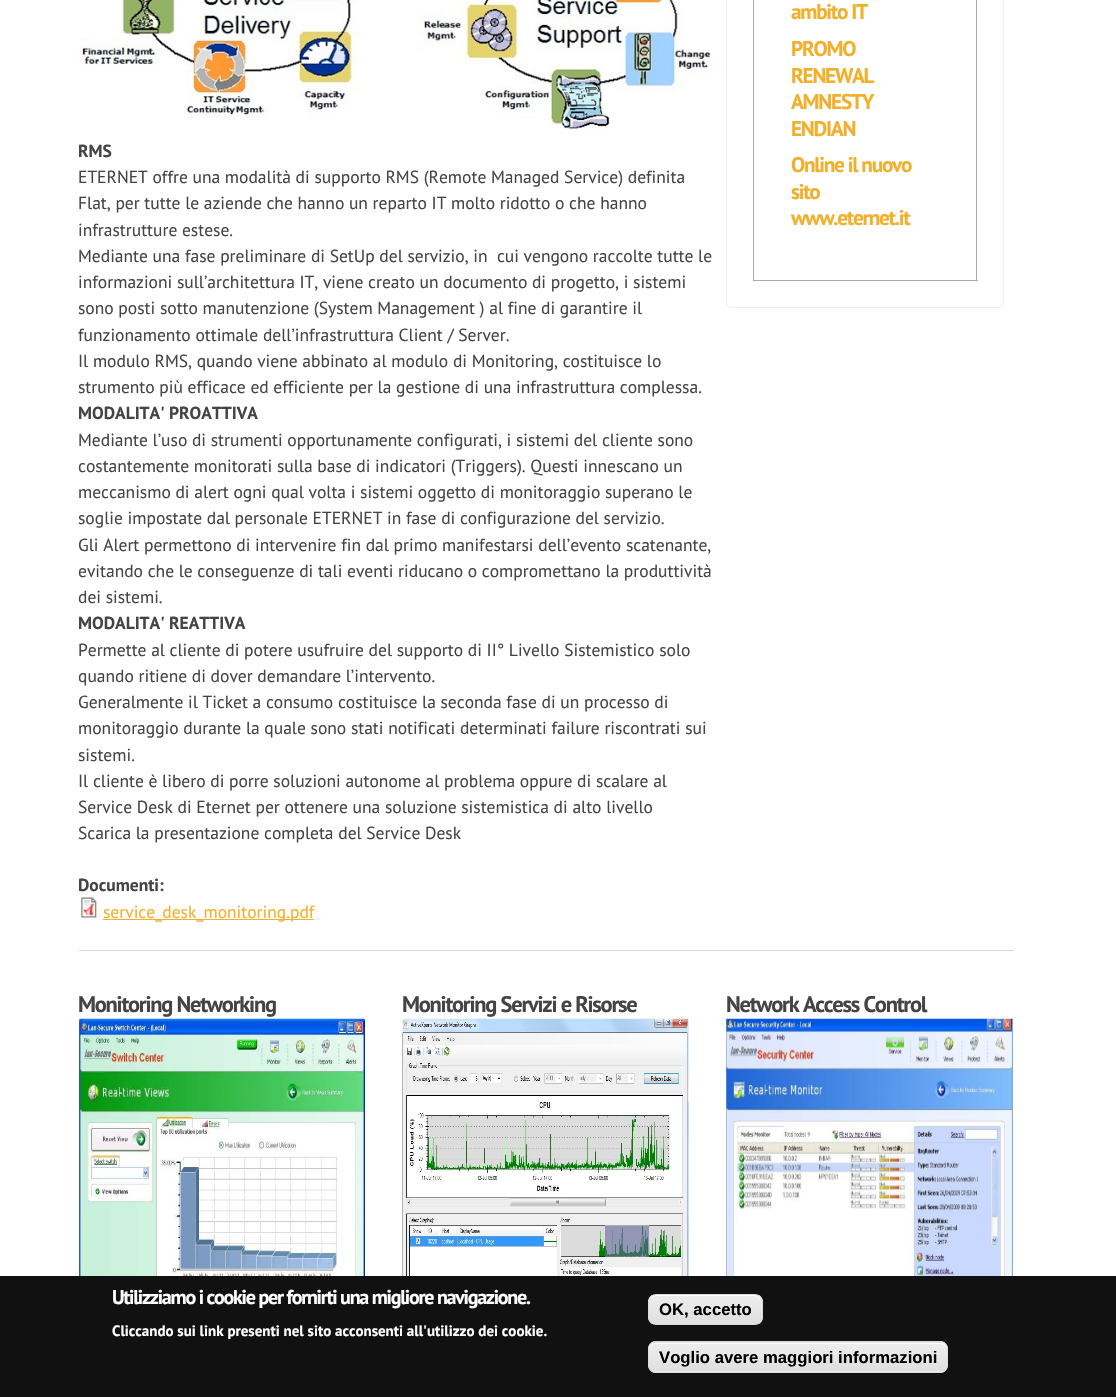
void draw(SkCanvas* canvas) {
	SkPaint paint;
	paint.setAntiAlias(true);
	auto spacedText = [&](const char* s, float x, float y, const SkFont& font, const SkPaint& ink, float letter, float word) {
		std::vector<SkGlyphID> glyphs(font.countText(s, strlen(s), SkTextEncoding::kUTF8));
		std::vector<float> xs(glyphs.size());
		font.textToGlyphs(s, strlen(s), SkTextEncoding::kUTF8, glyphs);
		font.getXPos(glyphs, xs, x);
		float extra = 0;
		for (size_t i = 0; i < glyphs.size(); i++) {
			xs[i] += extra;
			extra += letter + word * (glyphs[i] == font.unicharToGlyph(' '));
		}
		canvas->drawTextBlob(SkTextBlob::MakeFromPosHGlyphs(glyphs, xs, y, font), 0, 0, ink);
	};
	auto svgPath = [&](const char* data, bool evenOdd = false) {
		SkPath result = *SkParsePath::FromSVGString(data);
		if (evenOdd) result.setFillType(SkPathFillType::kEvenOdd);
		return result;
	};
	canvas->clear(0xffffffff);
	paint.setStroke(true);
	paint.setStrokeWidth(1);
	paint.setColor(0xffeeeeee);
	canvas->drawRoundRect(SkRect::MakeXYWH(726.5, -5.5, 277, 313), 4.5, 4.5, paint);
	paint.setStroke(false);
	paint.setColor(0xffaaaaaa);
	canvas->drawRect(SkRect::MakeXYWH(976, 0, 1, 281), paint);
	canvas->drawRect(SkRect::MakeXYWH(753, 280, 225, 1), paint);
	canvas->drawRect(SkRect::MakeXYWH(753, 0, 1, 281), paint);
	SkFont f1(fontMgr->matchFamilyStyle("PT Sans", SkFontStyle::Bold()), 21.25);
	f1.setSubpixel(true);
	paint.setColor(0xfff2af2b);
	spacedText("ambito IT", 791, 19, f1, paint, -1.25, 0);
	spacedText("PROMO", 791, 56, f1, paint, -1.25, 0);
	spacedText("RENEWAL", 791, 83, f1, paint, -1.25, 0);
	spacedText("AMNESTY", 791, 109, f1, paint, -1.25, 0);
	spacedText("ENDIAN", 791, 136, f1, paint, -1.25, 0);
	spacedText("Online il nuovo", 791, 172, f1, paint, -1.25, 0);
	spacedText("sito", 791, 199, f1, paint, -1.25, 0);
	spacedText("www.eternet.it", 791, 225, f1, paint, -1.25, 0);
	canvas->drawImageRect(SkImages::DeferredFromEncodedData(SkData::MakeFromFileName("img1.png")), SkRect::MakeXYWH(79, 0, 635, 130), SkSamplingOptions());
	SkFont f2(fontMgr->matchFamilyStyle("PT Sans", SkFontStyle::Bold()), 17.5);
	f2.setSubpixel(true);
	paint.setColor(0xff444444);
	canvas->drawString("RMS", 78, 157, f2, paint);
	SkFont f3(fontMgr->matchFamilyStyle("PT Sans", SkFontStyle::Normal()), 17.5);
	f3.setSubpixel(true);
	canvas->drawString("ETERNET offre una modalità di supporto RMS (Remote Managed Service) definita", 78, 183, f3, paint);
	canvas->drawString("Flat, per tutte le aziende che hanno un reparto IT molto ridotto o che hanno", 78, 209, f3, paint);
	canvas->drawString("infrastrutture estese.", 78, 236, f3, paint);
	canvas->drawString("Mediante una fase preliminare di SetUp del servizio, in  cui vengono raccolte tutte le", 78, 262, f3, paint);
	canvas->drawString("informazioni sull’architettura IT, viene creato un documento di progetto, i sistemi", 78, 288, f3, paint);
	canvas->drawString("sono posti sotto manutenzione (System Management ) al fine di garantire il", 78, 314, f3, paint);
	canvas->drawString("funzionamento ottimale dell’infrastruttura Client / Server.", 78, 341, f3, paint);
	canvas->drawString("Il modulo RMS, quando viene abbinato al modulo di Monitoring, costituisce lo", 78, 367, f3, paint);
	canvas->drawString("strumento più efficace ed efficiente per la gestione di una infrastruttura complessa.", 78, 393, f3, paint);
	canvas->drawString("MODALITA' PROATTIVA", 78, 419, f2, paint);
	canvas->drawString("Mediante l’uso di strumenti opportunamente configurati, i sistemi del cliente sono", 78, 446, f3, paint);
	canvas->drawString("costantemente monitorati sulla base di indicatori (Triggers). Questi innescano un", 78, 472, f3, paint);
	canvas->drawString("meccanismo di alert ogni qual volta i sistemi oggetto di monitoraggio superano le", 78, 498, f3, paint);
	canvas->drawString("soglie impostate dal personale ETERNET in fase di configurazione del servizio.", 78, 524, f3, paint);
	canvas->drawString("Gli Alert permettono di intervenire fin dal primo manifestarsi dell’evento scatenante,", 78, 551, f3, paint);
	canvas->drawString("evitando che le conseguenze di tali eventi riducano o compromettano la produttività", 78, 577, f3, paint);
	canvas->drawString("dei sistemi.", 78, 603, f3, paint);
	canvas->drawString("MODALITA' REATTIVA", 78, 629, f2, paint);
	canvas->drawString("Permette al cliente di potere usufruire del supporto di II° Livello Sistemistico solo", 78, 656, f3, paint);
	canvas->drawString("quando ritiene di dover demandare l’intervento.", 78, 682, f3, paint);
	canvas->drawString("Generalmente il Ticket a consumo costituisce la seconda fase di un processo di", 78, 708, f3, paint);
	canvas->drawString("monitoraggio durante la quale sono stati notificati determinati failure riscontrati sui", 78, 734, f3, paint);
	canvas->drawString("sistemi.", 78, 761, f3, paint);
	canvas->drawString("Il cliente è libero di porre soluzioni autonome al problema oppure di scalare al", 78, 787, f3, paint);
	canvas->drawString("Service Desk di Eternet per ottenere una soluzione sistemistica di alto livello", 78, 813, f3, paint);
	canvas->drawString("Scarica la presentazione completa del Service Desk", 78, 839, f3, paint);
	canvas->drawString("Documenti:", 78, 891, f2, paint);
	canvas->drawImageRect(SkImages::DeferredFromEncodedData(SkData::MakeFromFileName("img2.png")), SkRect::MakeXYWH(81, 897, 16, 21), SkSamplingOptions());
	paint.setColor(0xfff2af2b);
	canvas->drawRect(SkRect::MakeXYWH(103, 919, 211, 1), paint);
	canvas->drawString("service_desk_monitoring.pdf", 103, 918, f3, paint);
	paint.setColor(0xffd6d6d6);
	canvas->drawRect(SkRect::MakeXYWH(79, 950, 935, 1), paint);
	SkFont f4(fontMgr->matchFamilyStyle("PT Sans", SkFontStyle::Bold()), 22.5);
	f4.setSubpixel(true);
	paint.setColor(0xff444444);
	spacedText("Monitoring Networking", 78, 1012, f4, paint, -1.25, 0);
	canvas->drawImageRect(SkImages::DeferredFromEncodedData(SkData::MakeFromFileName("img3.png")), SkRect::MakeXYWH(78, 1018, 287, 258), SkSamplingOptions());
	spacedText("Monitoring Servizi e Risorse", 402, 1012, f4, paint, -1.25, 0);
	canvas->drawImageRect(SkImages::DeferredFromEncodedData(SkData::MakeFromFileName("img4.png")), SkRect::MakeXYWH(402, 1018, 287, 258), SkSamplingOptions());
	spacedText("Network Access Control", 726, 1012, f4, paint, -1.25, 0);
	canvas->drawImageRect(SkImages::DeferredFromEncodedData(SkData::MakeFromFileName("img5.png")), SkRect::MakeXYWH(726, 1018, 287, 258), SkSamplingOptions());
	paint.setColor(0xff111111);
	canvas->drawRect(SkRect::MakeXYWH(0, 1276, 1116, 121), paint);
	SkFont f5(fontMgr->matchFamilyStyle("PT Sans", SkFontStyle::Bold()), 20);
	f5.setSubpixel(true);
	paint.setColor(0xffffffff);
	spacedText("Utilizziamo i cookie per fornirti una migliore navigazione.", 112, 1304, f5, paint, -1.25, 0);
	SkFont f6(fontMgr->matchFamilyStyle("PT Sans", SkFontStyle::Bold()), 15);
	f6.setSubpixel(true);
	canvas->drawString("Cliccando sui link presenti nel sito acconsenti all'utilizzo dei cookie.", 112, 1336, f6, paint);
	canvas->save();
	canvas->clipPath(svgPath("M656 1294H755C759.5 1294 763 1297.5 763 1302V1317C763 1321.5 759.5 1325 755 1325H656C651.5 1325 648 1321.5 648 1317V1302C648 1297.5 651.5 1294 656 1294Z"), true);
	{
		const SkColor colors[] = {0xffededed, 0xffdfdfdf};
		const float stops[] = {0.05, 1};
		const SkPoint ends[] = {{705, 1295}, {705, 1324}};
		paint.setShader(SkGradientShader::MakeLinear(ends, colors, stops, 2, SkTileMode::kClamp));
		paint.setAlpha(255);
	}
	canvas->drawRect(SkRect::MakeXYWH(648, 1295, 115, 29), paint);
	canvas->restore();
	paint.setShader(nullptr);
	paint.setColor(0xffffffff);
	canvas->drawPath(svgPath("M655 1296H755C758 1296 761 1299 761 1302C761 1291 744 1295 738 1295H672C666 1295 649 1291 649 1302C649 1299 652 1296 655 1296Z"), paint);
	paint.setStroke(true);
	paint.setColor(0xffdcdcdc);
	canvas->drawRoundRect(SkRect::MakeXYWH(648.5, 1294.5, 114, 30), 7.5, 7.5, paint);
	SkFont f7(fontMgr->matchFamilyStyle("Liberation Sans", SkFontStyle::Bold()), 16.7);
	f7.setSubpixel(true);
	paint.setStroke(false);
	paint.setColor(0xff000000);
	canvas->drawString("OK, accetto", 659, 1315, f7, paint);
	canvas->save();
	canvas->clipPath(svgPath("M656 1341H940C944.5 1341 948 1344.5 948 1349V1365C948 1369.5 944.5 1373 940 1373H656C651.5 1373 648 1369.5 648 1365V1349C648 1344.5 651.5 1341 656 1341Z"), true);
	{
		const SkColor colors[] = {0xffededed, 0xffdfdfdf};
		const float stops[] = {0.05, 1};
		const SkPoint ends[] = {{798, 1314}, {798, 1343}};
		paint.setShader(SkGradientShader::MakeLinear(ends, colors, stops, 2, SkTileMode::kClamp));
		paint.setAlpha(255);
	}
	canvas->drawRect(SkRect::MakeXYWH(648, 1341, 300, 2), paint);
	{
		const SkColor colors[] = {0xffededed, 0xffdfdfdf};
		const float stops[] = {0.05, 1};
		const SkPoint ends[] = {{798, 1343}, {798, 1371}};
		paint.setShader(SkGradientShader::MakeLinear(ends, colors, stops, 2, SkTileMode::kClamp));
		paint.setAlpha(255);
	}
	canvas->drawRect(SkRect::MakeXYWH(648, 1343, 300, 28), paint);
	{
		const SkColor colors[] = {0xffededed, 0xffdfdfdf};
		const float stops[] = {0.05, 1};
		const SkPoint ends[] = {{798, 1371}, {798, 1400}};
		paint.setShader(SkGradientShader::MakeLinear(ends, colors, stops, 2, SkTileMode::kClamp));
		paint.setAlpha(255);
	}
	canvas->drawRect(SkRect::MakeXYWH(648, 1371, 300, 2), paint);
	canvas->restore();
	paint.setShader(nullptr);
	paint.setColor(0xffffffff);
	canvas->drawPath(svgPath("M655 1344H940C943 1344 946 1347 946 1350C946 1346 944 1343 940 1343H655C651 1343 649 1346 649 1350C649 1347 652 1344 655 1344Z"), paint);
	paint.setStroke(true);
	paint.setColor(0xffdcdcdc);
	canvas->drawRoundRect(SkRect::MakeXYWH(648.5, 1341.5, 299, 31), 7.5, 7.5, paint);
	paint.setStroke(false);
	paint.setColor(0xff000000);
	canvas->drawString("Voglio avere maggiori informazioni", 659, 1363, f7, paint);
}
